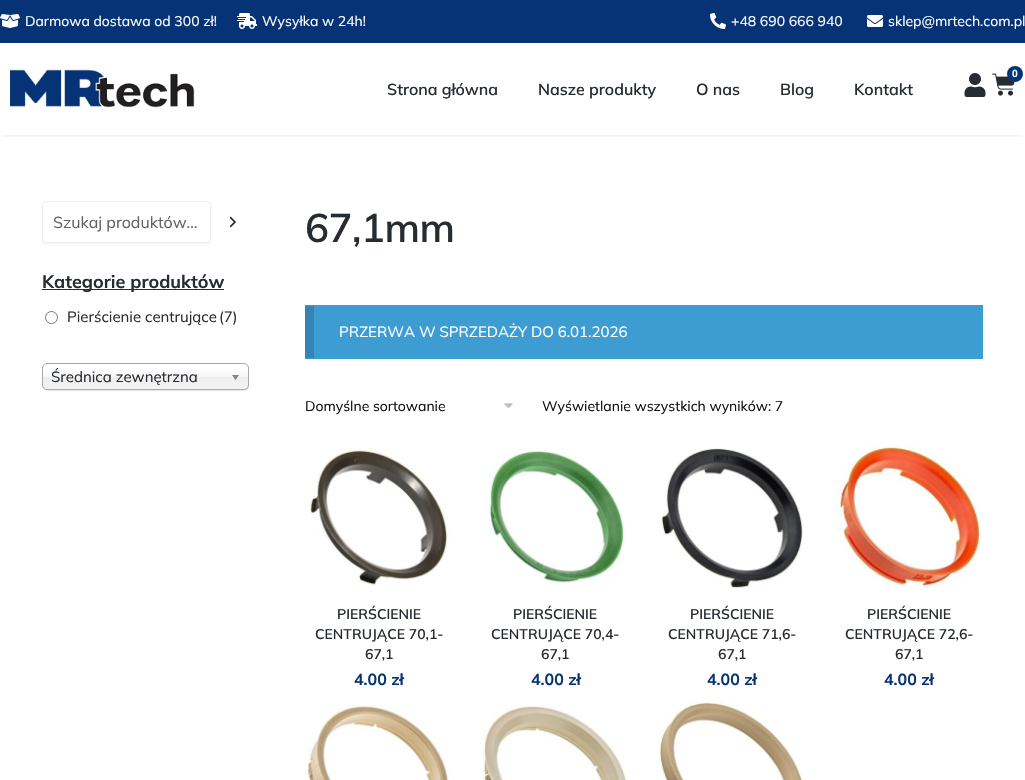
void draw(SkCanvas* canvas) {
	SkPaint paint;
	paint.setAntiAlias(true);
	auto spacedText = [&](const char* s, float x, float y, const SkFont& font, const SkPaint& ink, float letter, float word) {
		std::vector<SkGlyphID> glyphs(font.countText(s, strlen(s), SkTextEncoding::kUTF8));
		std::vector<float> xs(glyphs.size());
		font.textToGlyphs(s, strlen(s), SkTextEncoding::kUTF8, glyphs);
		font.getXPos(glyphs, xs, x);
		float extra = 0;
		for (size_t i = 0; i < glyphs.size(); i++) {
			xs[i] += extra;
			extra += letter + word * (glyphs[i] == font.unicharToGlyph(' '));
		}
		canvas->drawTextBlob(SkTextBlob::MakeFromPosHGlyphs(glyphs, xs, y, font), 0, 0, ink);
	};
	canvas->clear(0xffffffff);
	paint.setColor(0xff063375);
	canvas->drawRect(SkRect::MakeXYWH(0, 0, 1025, 43), paint);
	canvas->drawImageRect(SkImages::DeferredFromEncodedData(SkData::MakeFromFileName("img1.png")), SkRect::MakeXYWH(0, 14, 20, 14), SkSamplingOptions());
	SkFont f1(fontMgr->matchFamilyStyle("Mulish", SkFontStyle::Normal()), 14);
	f1.setSubpixel(true);
	paint.setColor(0xffffffff);
	canvas->drawString("Darmowa dostawa od 300 zł!", 25, 26, f1, paint);
	canvas->drawImageRect(SkImages::DeferredFromEncodedData(SkData::MakeFromFileName("img2.png")), SkRect::MakeXYWH(237, 13, 20, 16), SkSamplingOptions());
	canvas->drawString("Wysyłka w 24h!", 262, 26, f1, paint);
	canvas->drawImageRect(SkImages::DeferredFromEncodedData(SkData::MakeFromFileName("img3.png")), SkRect::MakeXYWH(710, 13, 16, 16), SkSamplingOptions());
	canvas->drawString("+48 690 666 940", 731, 26, f1, paint);
	canvas->drawImageRect(SkImages::DeferredFromEncodedData(SkData::MakeFromFileName("img4.png")), SkRect::MakeXYWH(867, 15, 16, 12), SkSamplingOptions());
	canvas->drawString("sklep@mrtech.com.pl", 888, 26, f1, paint);
	canvas->save();
	canvas->clipRect(SkRect::MakeXYWH(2, 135, 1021, 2));
	paint.setColor(0x1a000000);
	paint.setMaskFilter(SkMaskFilter::MakeBlur(kNormal_SkBlurStyle, 2.5));
	canvas->drawRect(SkRect::MakeXYWH(2, 47, 1021, 88), paint);
	paint.setMaskFilter(nullptr);
	canvas->restore();
	canvas->drawImageRect(SkImages::DeferredFromEncodedData(SkData::MakeFromFileName("img5.png")), SkRect::MakeXYWH(10, 69, 185, 39), SkSamplingOptions());
	canvas->drawImageRect(SkImages::DeferredFromEncodedData(SkData::MakeFromFileName("img6.png")), SkRect::MakeXYWH(964, 73, 22, 24), SkSamplingOptions());
	canvas->drawImageRect(SkImages::DeferredFromEncodedData(SkData::MakeFromFileName("img7.png")), SkRect::MakeXYWH(992, 73, 23, 23), SkSamplingOptions());
	paint.setColor(0xff063375);
	canvas->drawCircle(1015, 74, 8, paint);
	SkFont f2(fontMgr->matchFamilyStyle("Roboto", SkFontStyle(600, SkFontStyle::kNormal_Width, SkFontStyle::kUpright_Slant)), 10);
	f2.setSubpixel(true);
	paint.setColor(0xffffffff);
	canvas->drawString("0", 1012, 77, f2, paint);
	SkFont f3(fontMgr->matchFamilyStyle("Mulish", SkFontStyle(600, SkFontStyle::kNormal_Width, SkFontStyle::kUpright_Slant)), 16);
	f3.setSubpixel(true);
	paint.setColor(0xff272b32);
	canvas->drawString("Strona główna", 387, 95, f3, paint);
	canvas->drawString("Nasze produkty", 538, 95, f3, paint);
	canvas->drawString("O nas", 696, 95, f3, paint);
	canvas->drawString("Blog", 780, 95, f3, paint);
	canvas->drawString("Kontakt", 854, 95, f3, paint);
	paint.setColor(0x0d000000);
	paint.setMaskFilter(SkMaskFilter::MakeBlur(kNormal_SkBlurStyle, 1));
	canvas->drawRoundRect(SkRect::MakeXYWH(42, 202, 169, 42), 4, 4, paint);
	paint.setMaskFilter(nullptr);
	paint.setColor(0xffffffff);
	canvas->drawRoundRect(SkRect::MakeXYWH(42.5, 201.5, 168, 41), 3.5, 3.5, paint);
	paint.setStroke(true);
	paint.setStrokeWidth(1);
	paint.setColor(0xffeeeeee);
	canvas->drawRoundRect(SkRect::MakeXYWH(42.5, 201.5, 168, 41), 3.5, 3.5, paint);
	SkFont f4(fontMgr->matchFamilyStyle("Mulish", SkFontStyle::Normal()), 16);
	f4.setSubpixel(true);
	paint.setStroke(false);
	paint.setColor(0xff616161);
	canvas->drawString("Szukaj produktów…", 53, 228, f4, paint);
	canvas->drawImageRect(SkImages::DeferredFromEncodedData(SkData::MakeFromFileName("img8.png")), SkRect::MakeXYWH(229, 216, 7, 12), SkSamplingOptions());
	paint.setColor(0xff272b32);
	canvas->drawRect(SkRect::MakeXYWH(42, 289, 182, 1), paint);
	SkFont f5(fontMgr->matchFamilyStyle("Mulish", SkFontStyle::Bold()), 18);
	f5.setSubpixel(true);
	canvas->drawString("Kategorie produktów", 42, 288, f5, paint);
	paint.setStroke(true);
	paint.setColor(0xff767676);
	canvas->drawCircle(51.5, 317.5, 6, paint);
	SkFont f6(fontMgr->matchFamilyStyle("Mulish", SkFontStyle::Normal()), 15);
	f6.setSubpixel(true);
	paint.setStroke(false);
	paint.setColor(0xff272b32);
	canvas->drawString("Pierścienie centrujące", 67, 322, f6, paint);
	canvas->drawString("(7)", 219, 322, f6, paint);
	paint.setColor(0x1a000000);
	paint.setMaskFilter(SkMaskFilter::MakeBlur(kNormal_SkBlurStyle, 0.5));
	canvas->drawRoundRect(SkRect::MakeXYWH(42, 364, 207, 27), 5, 5, paint);
	paint.setMaskFilter(nullptr);
	{
		const SkColor colors[] = {0xffffffff, 0xfff6f6f6, 0xffeeeeee, 0xfff4f4f4};
		const float stops[] = {0.2, 0.5, 0.52, 1};
		const SkPoint ends[] = {{146, 364}, {146, 389}};
		paint.setShader(SkGradientShader::MakeLinear(ends, colors, stops, 4, SkTileMode::kClamp));
		paint.setAlpha(255);
	}
	canvas->drawRoundRect(SkRect::MakeXYWH(43, 364, 205, 25), 4, 4, paint);
	paint.setStroke(true);
	paint.setShader(nullptr);
	paint.setColor(0xffaaaaaa);
	canvas->drawRoundRect(SkRect::MakeXYWH(42.5, 363.5, 206, 26), 4.5, 4.5, paint);
	paint.setStroke(false);
	paint.setColor(0xff272b32);
	canvas->drawString("Średnica zewnętrzna", 51, 382, f6, paint);
	canvas->drawImageRect(SkImages::DeferredFromEncodedData(SkData::MakeFromFileName("img9.png")), SkRect::MakeXYWH(232, 375, 7, 6), SkSamplingOptions());
	SkFont f7(fontMgr->matchFamilyStyle("Mulish", SkFontStyle(600, SkFontStyle::kNormal_Width, SkFontStyle::kUpright_Slant)), 40);
	f7.setSubpixel(true);
	spacedText("67,1mm", 305, 242, f7, paint, -0.5, 0);
	paint.setColor(0xff3d9cd2);
	canvas->drawRect(SkRect::MakeXYWH(305, 305, 678, 54), paint);
	paint.setColor(0xff3485b3);
	canvas->drawRect(SkRect::MakeXYWH(305, 306, 9, 52), paint);
	paint.setColor(0xffffffff);
	canvas->drawString("PRZERWA W SPRZEDAŻY DO 6.01.2026", 339, 337, f6, paint);
	canvas->drawImageRect(SkImages::DeferredFromEncodedData(SkData::MakeFromFileName("img10.png")), SkRect::MakeXYWH(504, 403, 9, 6), SkSamplingOptions());
	paint.setColor(0xff111111);
	canvas->drawString("Domyślne sortowanie", 305, 411, f1, paint);
	canvas->drawString("Wyświetlanie wszystkich wyników: 7", 542, 411, f1, paint);
	canvas->drawImageRect(SkImages::DeferredFromEncodedData(SkData::MakeFromFileName("img11.png")), SkRect::MakeXYWH(305, 448, 147, 137), SkSamplingOptions());
	SkFont f8(fontMgr->matchFamilyStyle("Mulish", SkFontStyle(600, SkFontStyle::kNormal_Width, SkFontStyle::kUpright_Slant)), 14);
	f8.setSubpixel(true);
	paint.setColor(0xff272b32);
	canvas->drawString("PIERŚCIENIE", 337, 619, f8, paint);
	canvas->drawString("CENTRUJĄCE 70,1-", 315, 639, f8, paint);
	canvas->drawString("67,1", 365, 659, f8, paint);
	SkFont f9(fontMgr->matchFamilyStyle("Mulish", SkFontStyle::Bold()), 16);
	f9.setSubpixel(true);
	paint.setColor(0xff063375);
	canvas->drawString("4.00 zł", 354, 685, f9, paint);
	canvas->drawImageRect(SkImages::DeferredFromEncodedData(SkData::MakeFromFileName("img12.png")), SkRect::MakeXYWH(489, 450, 135, 134), SkSamplingOptions());
	paint.setColor(0xff272b32);
	canvas->drawString("PIERŚCIENIE", 513, 619, f8, paint);
	canvas->drawString("CENTRUJĄCE 70,4-", 491, 639, f8, paint);
	canvas->drawString("67,1", 541, 659, f8, paint);
	paint.setColor(0xff063375);
	canvas->drawString("4.00 zł", 531, 685, f9, paint);
	canvas->drawImageRect(SkImages::DeferredFromEncodedData(SkData::MakeFromFileName("img13.png")), SkRect::MakeXYWH(659, 448, 144, 141), SkSamplingOptions());
	paint.setColor(0xff272b32);
	canvas->drawString("PIERŚCIENIE", 690, 619, f8, paint);
	canvas->drawString("CENTRUJĄCE 71,6-", 668, 639, f8, paint);
	canvas->drawString("67,1", 718, 659, f8, paint);
	paint.setColor(0xff063375);
	canvas->drawString("4.00 zł", 707, 685, f9, paint);
	canvas->drawImageRect(SkImages::DeferredFromEncodedData(SkData::MakeFromFileName("img14.png")), SkRect::MakeXYWH(836, 444, 146, 143), SkSamplingOptions());
	paint.setColor(0xff272b32);
	canvas->drawString("PIERŚCIENIE", 867, 619, f8, paint);
	canvas->drawString("CENTRUJĄCE 72,6-", 845, 639, f8, paint);
	canvas->drawString("67,1", 895, 659, f8, paint);
	paint.setColor(0xff063375);
	canvas->drawString("4.00 zł", 884, 685, f9, paint);
	canvas->drawImageRect(SkImages::DeferredFromEncodedData(SkData::MakeFromFileName("img15.png")), SkRect::MakeXYWH(305, 703, 147, 77), SkSamplingOptions());
	canvas->drawImageRect(SkImages::DeferredFromEncodedData(SkData::MakeFromFileName("img16.png")), SkRect::MakeXYWH(482, 705, 145, 75), SkSamplingOptions());
	canvas->drawImageRect(SkImages::DeferredFromEncodedData(SkData::MakeFromFileName("img17.png")), SkRect::MakeXYWH(659, 701, 144, 79), SkSamplingOptions());
}
